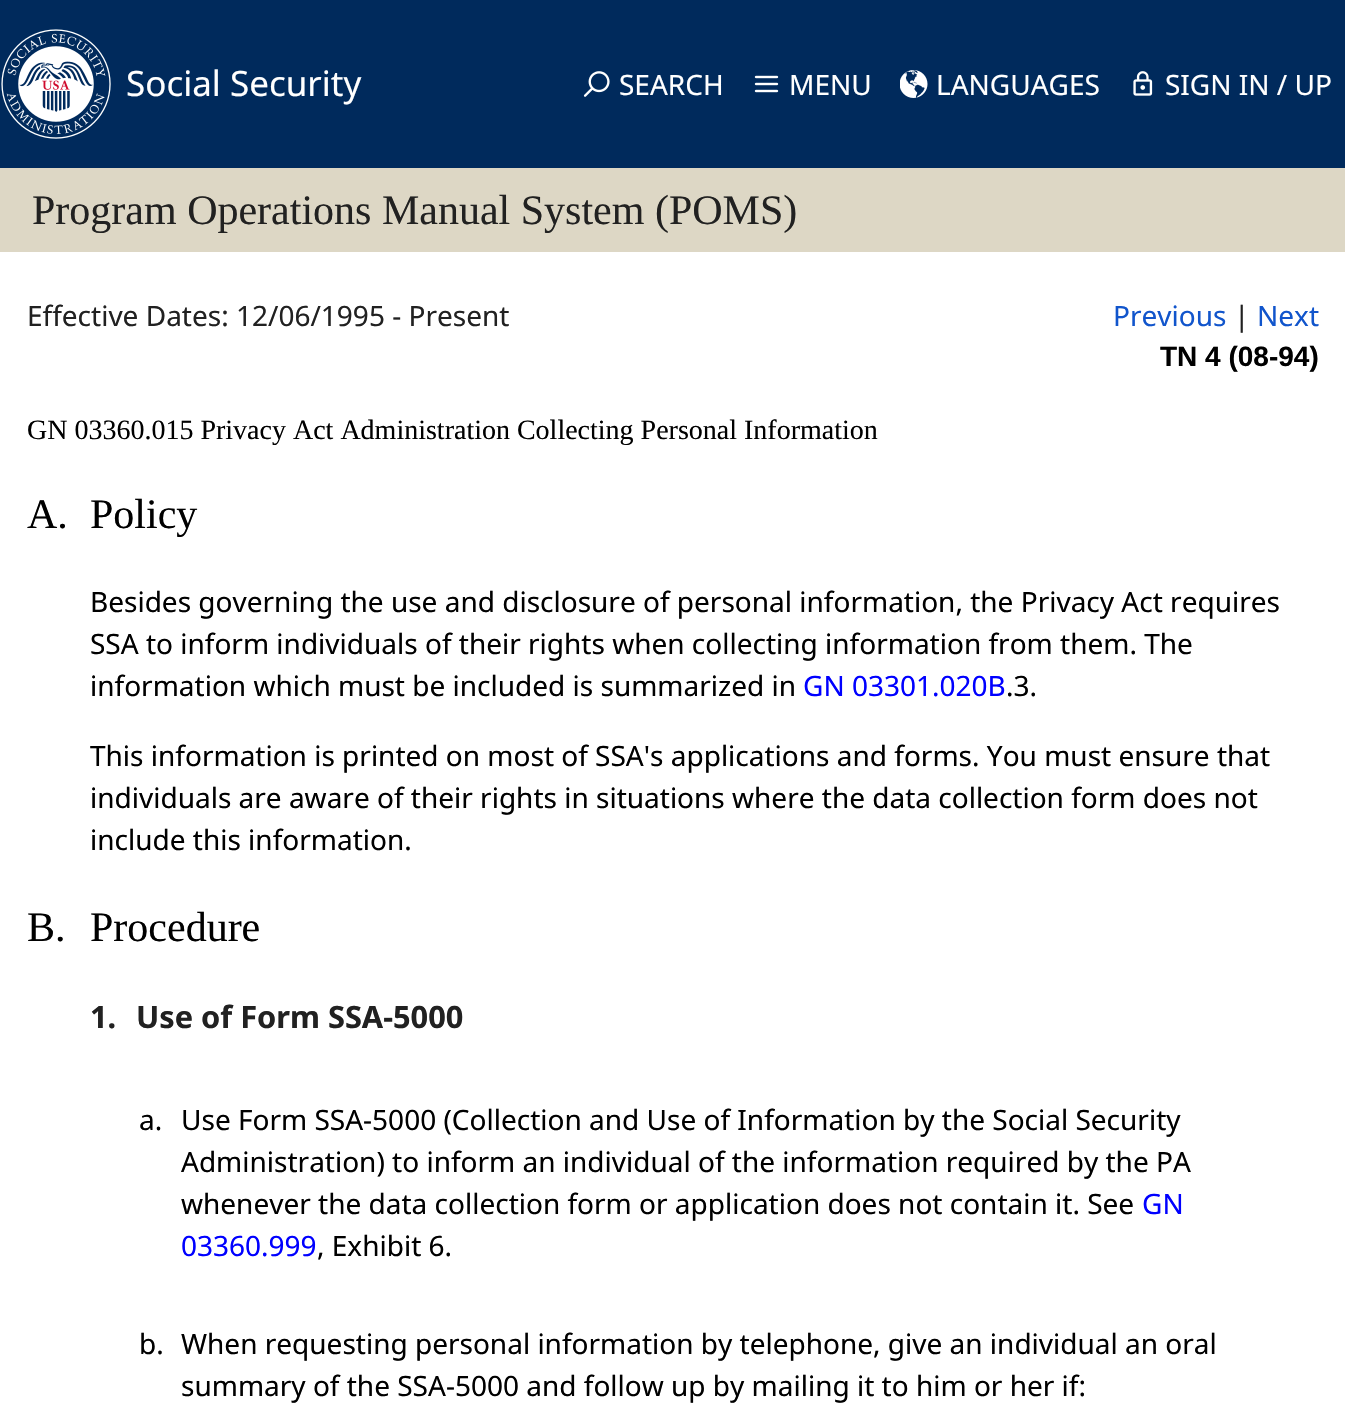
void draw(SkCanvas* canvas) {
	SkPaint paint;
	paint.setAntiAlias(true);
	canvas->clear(0xff002a5c);
	canvas->drawImageRect(SkImages::DeferredFromEncodedData(SkData::MakeFromFileName("img1.png")), SkRect::MakeXYWH(1, 29, 110, 110), SkSamplingOptions());
	SkFont f1(fontMgr->matchFamilyStyle("Noto Sans", SkFontStyle::Normal()), 35);
	f1.setSubpixel(true);
	paint.setColor(0xffffffff);
	canvas->drawString("Social Security", 126, 96, f1, paint);
	canvas->drawImageRect(SkImages::DeferredFromEncodedData(SkData::MakeFromFileName("img2.png")), SkRect::MakeXYWH(583, 71, 27, 26), SkSamplingOptions());
	SkFont f2(fontMgr->matchFamilyStyle("Noto Sans", SkFontStyle::Normal()), 28);
	f2.setSubpixel(true);
	canvas->drawString("SEARCH", 619, 95, f2, paint);
	canvas->drawImageRect(SkImages::DeferredFromEncodedData(SkData::MakeFromFileName("img3.png")), SkRect::MakeXYWH(754, 75, 25, 18), SkSamplingOptions());
	canvas->drawString("MENU", 789, 95, f2, paint);
	canvas->drawImageRect(SkImages::DeferredFromEncodedData(SkData::MakeFromFileName("img4.png")), SkRect::MakeXYWH(900, 70, 28, 28), SkSamplingOptions());
	canvas->drawString("LANGUAGES", 936, 95, f2, paint);
	canvas->drawImageRect(SkImages::DeferredFromEncodedData(SkData::MakeFromFileName("img5.png")), SkRect::MakeXYWH(1133, 71, 20, 25), SkSamplingOptions());
	canvas->drawString("SIGN IN / UP", 1165, 95, f2, paint);
	paint.setColor(0xffddd7c5);
	canvas->drawRect(SkRect::MakeXYWH(0, 168, 1345, 84), paint);
	SkFont f3(fontMgr->matchFamilyStyle("Liberation Serif", SkFontStyle::Normal()), 42);
	f3.setSubpixel(true);
	paint.setColor(0xff212121);
	canvas->drawString("Program Operations Manual System (POMS)", 32, 224, f3, paint);
	paint.setColor(0xffffffff);
	canvas->drawRect(SkRect::MakeXYWH(0, 252, 1345, 1154), paint);
	paint.setColor(0xff212121);
	canvas->drawString("Effective Dates: 12/06/1995 - Present", 27, 326, f2, paint);
	paint.setColor(0xff1155cc);
	canvas->drawString("Previous", 1113, 326, f2, paint);
	paint.setColor(0xff212121);
	canvas->drawString("|", 1234, 326, f2, paint);
	paint.setColor(0xff1155cc);
	canvas->drawString("Next", 1257, 326, f2, paint);
	SkFont f4(fontMgr->matchFamilyStyle("Liberation Sans", SkFontStyle::Bold()), 28);
	f4.setSubpixel(true);
	paint.setColor(0xff000000);
	canvas->drawString("TN 4 (08-94)", 1160, 366, f4, paint);
	SkFont f5(fontMgr->matchFamilyStyle("Liberation Serif", SkFontStyle::Normal()), 28);
	f5.setSubpixel(true);
	canvas->drawString("GN 03360.015 Privacy Act Administration Collecting Personal Information", 27, 439, f5, paint);
	canvas->drawString("A.", 27, 528, f3, paint);
	canvas->drawString("Policy", 90, 528, f3, paint);
	canvas->drawString("Besides governing the use and disclosure of personal information, the Privacy Act requires", 90, 612, f2, paint);
	canvas->drawString("SSA to inform individuals of their rights when collecting information from them. The", 90, 654, f2, paint);
	canvas->drawString("information which must be included is summarized in", 90, 696, f2, paint);
	paint.setColor(0xff0000ff);
	canvas->drawString("GN 03301.020B", 803, 696, f2, paint);
	paint.setColor(0xff000000);
	canvas->drawString(".3.", 1006, 696, f2, paint);
	canvas->drawString("This information is printed on most of SSA's applications and forms. You must ensure that", 90, 766, f2, paint);
	canvas->drawString("individuals are aware of their rights in situations where the data collection form does not", 90, 808, f2, paint);
	canvas->drawString("include this information.", 90, 850, f2, paint);
	canvas->drawString("B.", 27, 941, f3, paint);
	canvas->drawString("Procedure", 90, 941, f3, paint);
	SkFont f6(fontMgr->matchFamilyStyle("Noto Sans", SkFontStyle::Bold()), 30.75);
	f6.setSubpixel(true);
	paint.setColor(0xff212121);
	canvas->drawString("1.", 90, 1028, f6, paint);
	canvas->drawString("Use of Form SSA-5000", 136, 1028, f6, paint);
	paint.setColor(0xff000000);
	canvas->drawString("a.", 139, 1130, f2, paint);
	canvas->drawString("Use Form SSA-5000 (Collection and Use of Information by the Social Security", 181, 1130, f2, paint);
	canvas->drawString("Administration) to inform an individual of the information required by the PA", 181, 1172, f2, paint);
	canvas->drawString("whenever the data collection form or application does not contain it. See", 181, 1214, f2, paint);
	paint.setColor(0xff0000ff);
	canvas->drawString("GN", 1142, 1214, f2, paint);
	canvas->drawString("03360.999", 181, 1256, f2, paint);
	paint.setColor(0xff000000);
	canvas->drawString(", Exhibit 6.", 317, 1256, f2, paint);
	canvas->drawString("b.", 139, 1354, f2, paint);
	canvas->drawString("When requesting personal information by telephone, give an individual an oral", 181, 1354, f2, paint);
	canvas->drawString("summary of the SSA-5000 and follow up by mailing it to him or her if:", 181, 1396, f2, paint);
}
